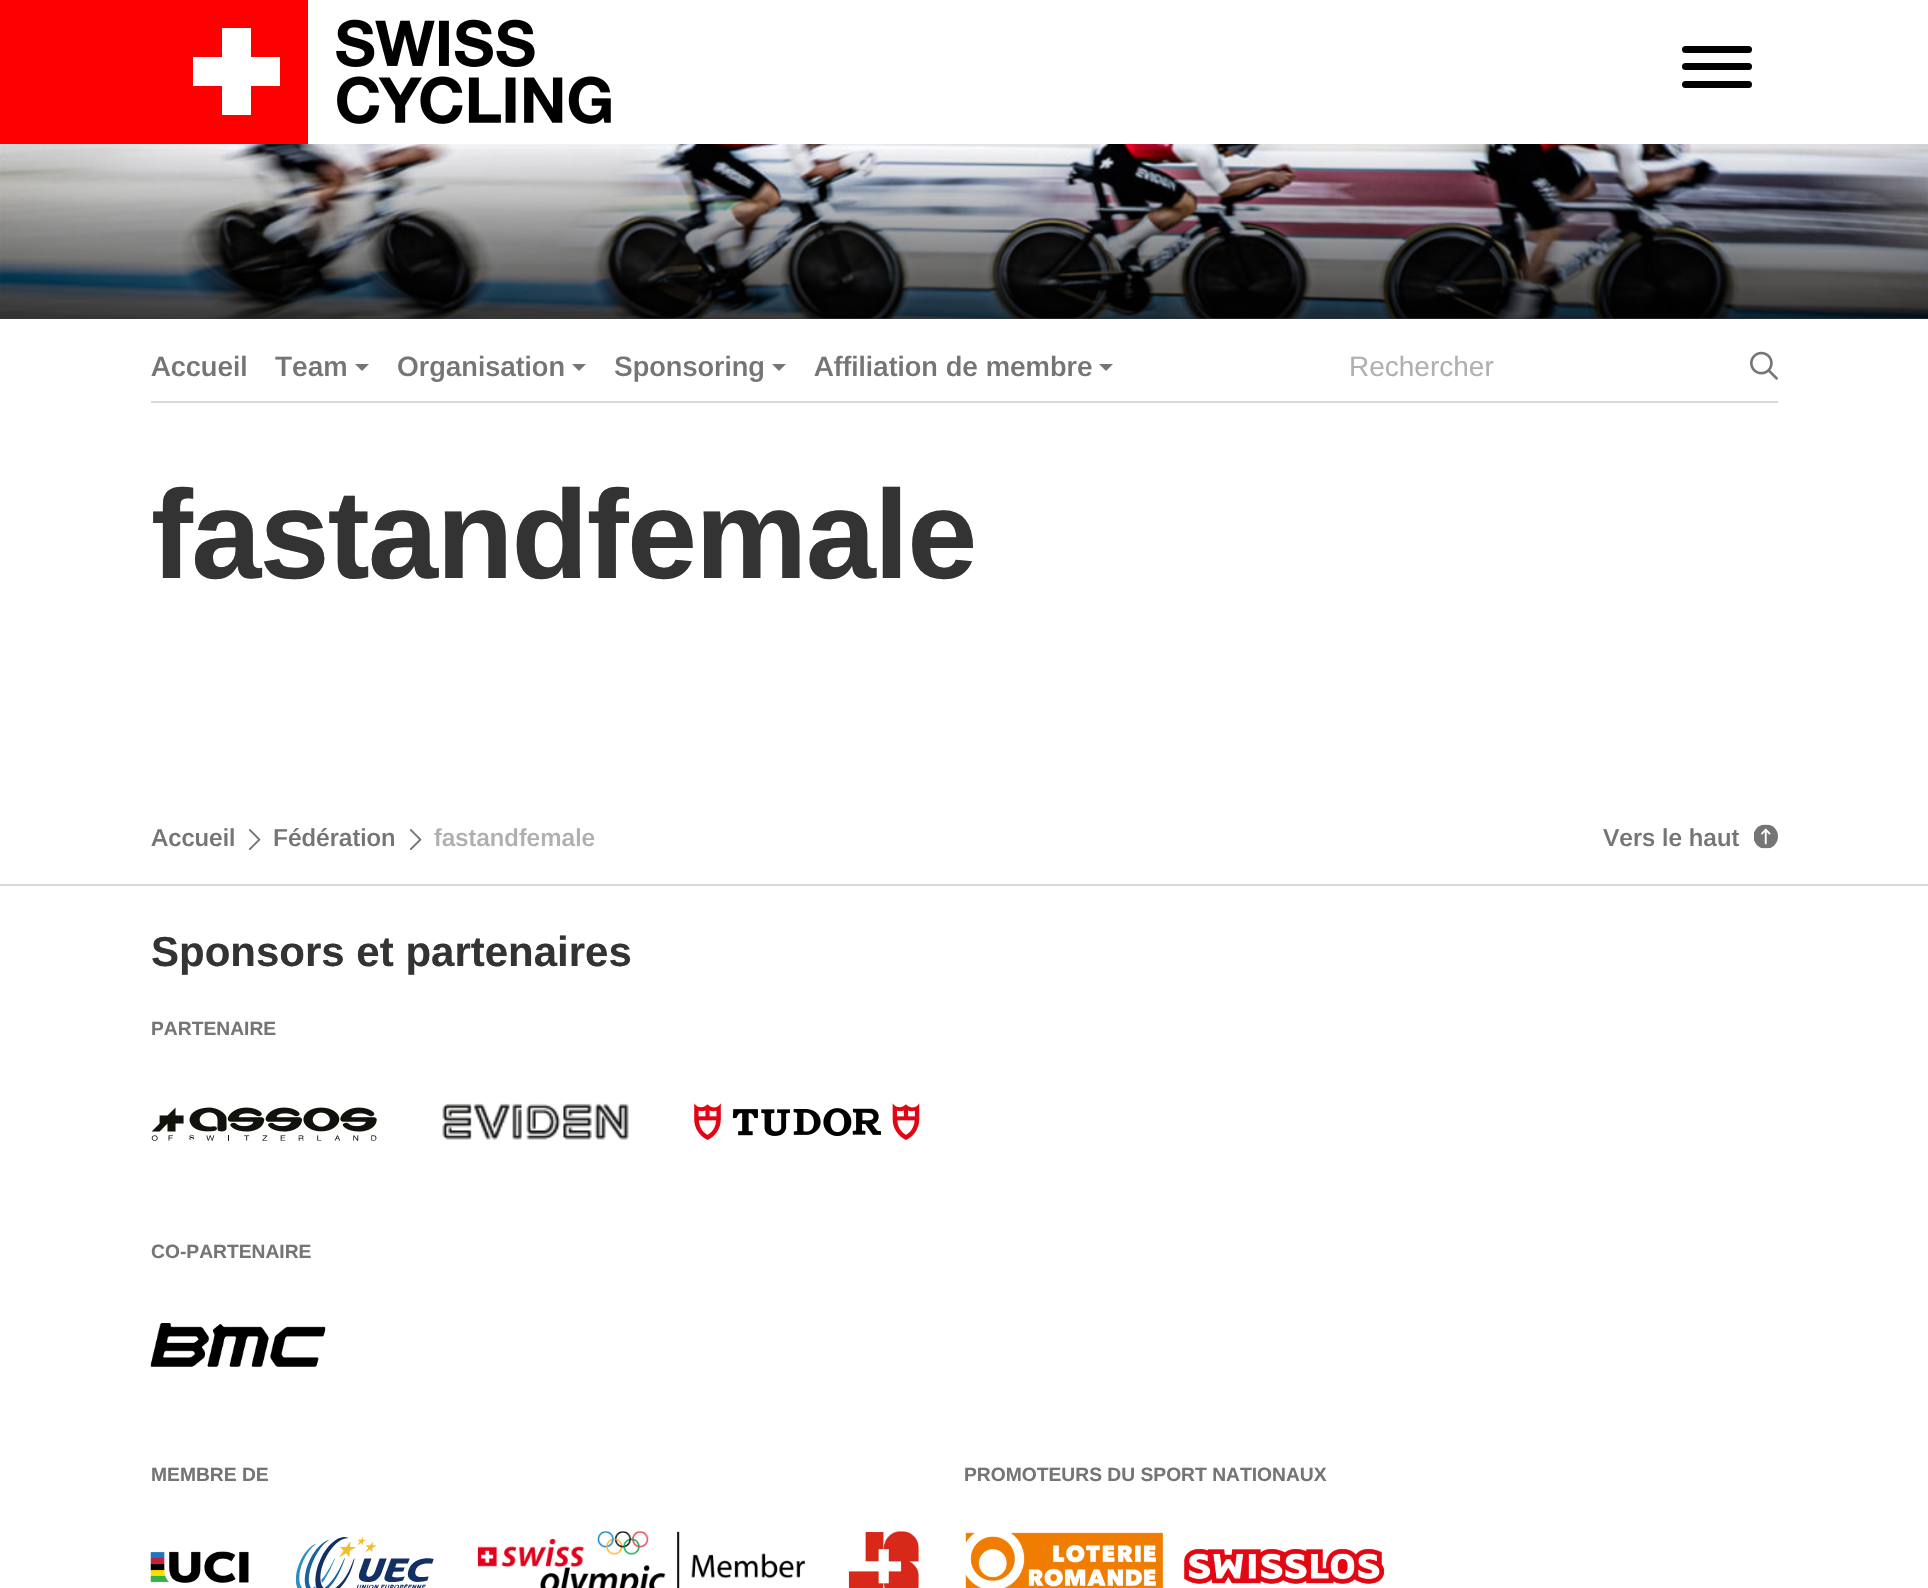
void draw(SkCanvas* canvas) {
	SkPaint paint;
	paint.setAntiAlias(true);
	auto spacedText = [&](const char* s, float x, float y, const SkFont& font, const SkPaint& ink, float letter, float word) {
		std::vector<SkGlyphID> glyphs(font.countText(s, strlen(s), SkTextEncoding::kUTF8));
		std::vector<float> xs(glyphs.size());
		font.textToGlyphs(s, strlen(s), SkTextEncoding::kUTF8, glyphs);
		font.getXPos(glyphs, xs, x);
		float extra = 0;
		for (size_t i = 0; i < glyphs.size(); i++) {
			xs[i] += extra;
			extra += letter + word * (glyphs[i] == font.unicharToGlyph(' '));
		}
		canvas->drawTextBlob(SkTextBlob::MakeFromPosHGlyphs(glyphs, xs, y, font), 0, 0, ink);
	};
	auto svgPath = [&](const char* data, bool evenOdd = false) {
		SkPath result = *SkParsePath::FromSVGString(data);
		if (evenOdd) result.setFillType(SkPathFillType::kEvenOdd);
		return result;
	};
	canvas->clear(0xffffffff);
	paint.setColor(0xffff0000);
	canvas->drawRect(SkRect::MakeXYWH(0, 0, 308, 144), paint);
	paint.setColor(0xffffffff);
	canvas->drawPath(svgPath("M251 57V28H222V57H193V86H222V115H251V86H280V57Z"), paint);
	canvas->drawImageRect(SkImages::DeferredFromEncodedData(SkData::MakeFromFileName("img1.png")), SkRect::MakeXYWH(336, 19, 275, 105), SkSamplingOptions());
	paint.setColor(0xff000000);
	canvas->drawRoundRect(SkRect::MakeXYWH(1682, 63, 70, 7), 3.5, 3.5, paint);
	canvas->drawRoundRect(SkRect::MakeXYWH(1682, 46, 70, 7), 3.5, 3.5, paint);
	canvas->drawRoundRect(SkRect::MakeXYWH(1682, 81, 70, 7), 3.5, 3.5, paint);
	paint.setColor(0xffefefef);
	canvas->drawRect(SkRect::MakeXYWH(0, 318, 1928, 1), paint);
	canvas->drawImageRect(SkImages::DeferredFromEncodedData(SkData::MakeFromFileName("img2.png")), SkRect::MakeXYWH(0, 144, 1928, 175), SkSamplingOptions());
	{
		const SkColor colors[] = {0xbf000000, 0x00000000};
		const float stops[] = {0, 1};
		const SkPoint ends[] = {{964, 319}, {964, 144}};
		paint.setShader(SkGradientShader::MakeLinear(ends, colors, stops, 2, SkTileMode::kClamp));
		paint.setAlpha(255);
	}
	canvas->drawRect(SkRect::MakeXYWH(0, 149, 1928, 170), paint);
	SkFont f1(fontMgr->matchFamilyStyle("Arimo", SkFontStyle(600, SkFontStyle::kNormal_Width, SkFontStyle::kUpright_Slant)), 28);
	f1.setSubpixel(true);
	paint.setShader(nullptr);
	paint.setColor(0xff757575);
	canvas->drawString("Accueil", 151, 376, f1, paint);
	canvas->drawString("Team", 275, 376, f1, paint);
	canvas->drawPath(svgPath("M355 364H369L362 371Z"), paint);
	canvas->drawString("Organisation", 397, 376, f1, paint);
	canvas->drawPath(svgPath("M572 364H586L579 371Z"), paint);
	canvas->drawString("Sponsoring", 614, 376, f1, paint);
	canvas->drawPath(svgPath("M772 364H786L779 371Z"), paint);
	canvas->drawString("Affiliation de membre", 814, 376, f1, paint);
	canvas->drawPath(svgPath("M1099 364H1113L1106 371Z"), paint);
	SkFont f2(fontMgr->matchFamilyStyle("Arimo", SkFontStyle::Normal()), 28);
	f2.setSubpixel(true);
	paint.setColor(0xffb0b0b0);
	canvas->drawString("Rechercher", 1349, 376, f2, paint);
	canvas->drawImageRect(SkImages::DeferredFromEncodedData(SkData::MakeFromFileName("img3.png")), SkRect::MakeXYWH(1750, 351, 28, 29), SkSamplingOptions());
	paint.setColor(0xffd8d8d8);
	canvas->drawRect(SkRect::MakeXYWH(151, 401, 1627, 2), paint);
	SkFont f3(fontMgr->matchFamilyStyle("Arimo", SkFontStyle::Bold()), 126);
	f3.setSubpixel(true);
	paint.setColor(0xff333333);
	spacedText("fastandfemale", 151, 578, f3, paint, -1.75, 0);
	SkFont f4(fontMgr->matchFamilyStyle("Arimo", SkFontStyle(600, SkFontStyle::kNormal_Width, SkFontStyle::kUpright_Slant)), 24.5);
	f4.setSubpixel(true);
	paint.setColor(0xff757575);
	canvas->drawString("Accueil", 151, 846, f4, paint);
	canvas->drawImageRect(SkImages::DeferredFromEncodedData(SkData::MakeFromFileName("img4.png")), SkRect::MakeXYWH(248, 829, 13, 21), SkSamplingOptions());
	canvas->drawString("Fédération", 273, 846, f4, paint);
	canvas->drawImageRect(SkImages::DeferredFromEncodedData(SkData::MakeFromFileName("img4.png")), SkRect::MakeXYWH(409, 829, 13, 21), SkSamplingOptions());
	paint.setColor(0xffb0b0b0);
	canvas->drawString("fastandfemale", 434, 846, f4, paint);
	paint.setColor(0xff757575);
	canvas->drawString("Vers le haut", 1603, 846, f4, paint);
	canvas->drawImageRect(SkImages::DeferredFromEncodedData(SkData::MakeFromFileName("img5.png")), SkRect::MakeXYWH(1754, 824, 24, 25), SkSamplingOptions());
	paint.setColor(0xffd8d8d8);
	canvas->drawRect(SkRect::MakeXYWH(0, 884, 1928, 2), paint);
	SkFont f5(fontMgr->matchFamilyStyle("Arimo", SkFontStyle::Bold()), 42);
	f5.setSubpixel(true);
	paint.setColor(0xff333333);
	canvas->drawString("Sponsors et partenaires", 151, 966, f5, paint);
	SkFont f6(fontMgr->matchFamilyStyle("Arimo", SkFontStyle::Bold()), 19.25);
	f6.setSubpixel(true);
	paint.setColor(0xff757575);
	canvas->drawString("PARTENAIRE", 151, 1035, f6, paint);
	canvas->drawImageRect(SkImages::DeferredFromEncodedData(SkData::MakeFromFileName("img6.png")), SkRect::MakeXYWH(151, 1107, 226, 34), SkSamplingOptions());
	canvas->drawImageRect(SkImages::DeferredFromEncodedData(SkData::MakeFromFileName("img7.png")), SkRect::MakeXYWH(442, 1103, 187, 37), SkSamplingOptions());
	canvas->drawImageRect(SkImages::DeferredFromEncodedData(SkData::MakeFromFileName("img8.png")), SkRect::MakeXYWH(694, 1103, 226, 37), SkSamplingOptions());
	canvas->drawString("CO-PARTENAIRE", 151, 1258, f6, paint);
	canvas->drawImageRect(SkImages::DeferredFromEncodedData(SkData::MakeFromFileName("img9.png")), SkRect::MakeXYWH(150, 1323, 176, 44), SkSamplingOptions());
	canvas->drawString("MEMBRE DE", 151, 1481, f6, paint);
	canvas->drawImageRect(SkImages::DeferredFromEncodedData(SkData::MakeFromFileName("img10.png")), SkRect::MakeXYWH(150, 1551, 99, 32), SkSamplingOptions());
	canvas->drawImageRect(SkImages::DeferredFromEncodedData(SkData::MakeFromFileName("img11.png")), SkRect::MakeXYWH(296, 1537, 138, 51), SkSamplingOptions());
	canvas->drawImageRect(SkImages::DeferredFromEncodedData(SkData::MakeFromFileName("img12.png")), SkRect::MakeXYWH(477, 1531, 328, 57), SkSamplingOptions());
	canvas->drawImageRect(SkImages::DeferredFromEncodedData(SkData::MakeFromFileName("img13.png")), SkRect::MakeXYWH(848, 1531, 71, 57), SkSamplingOptions());
	canvas->drawString("PROMOTEURS DU SPORT NATIONAUX", 964, 1481, f6, paint);
	canvas->drawImageRect(SkImages::DeferredFromEncodedData(SkData::MakeFromFileName("img14.png")), SkRect::MakeXYWH(965, 1532, 420, 56), SkSamplingOptions());
}
